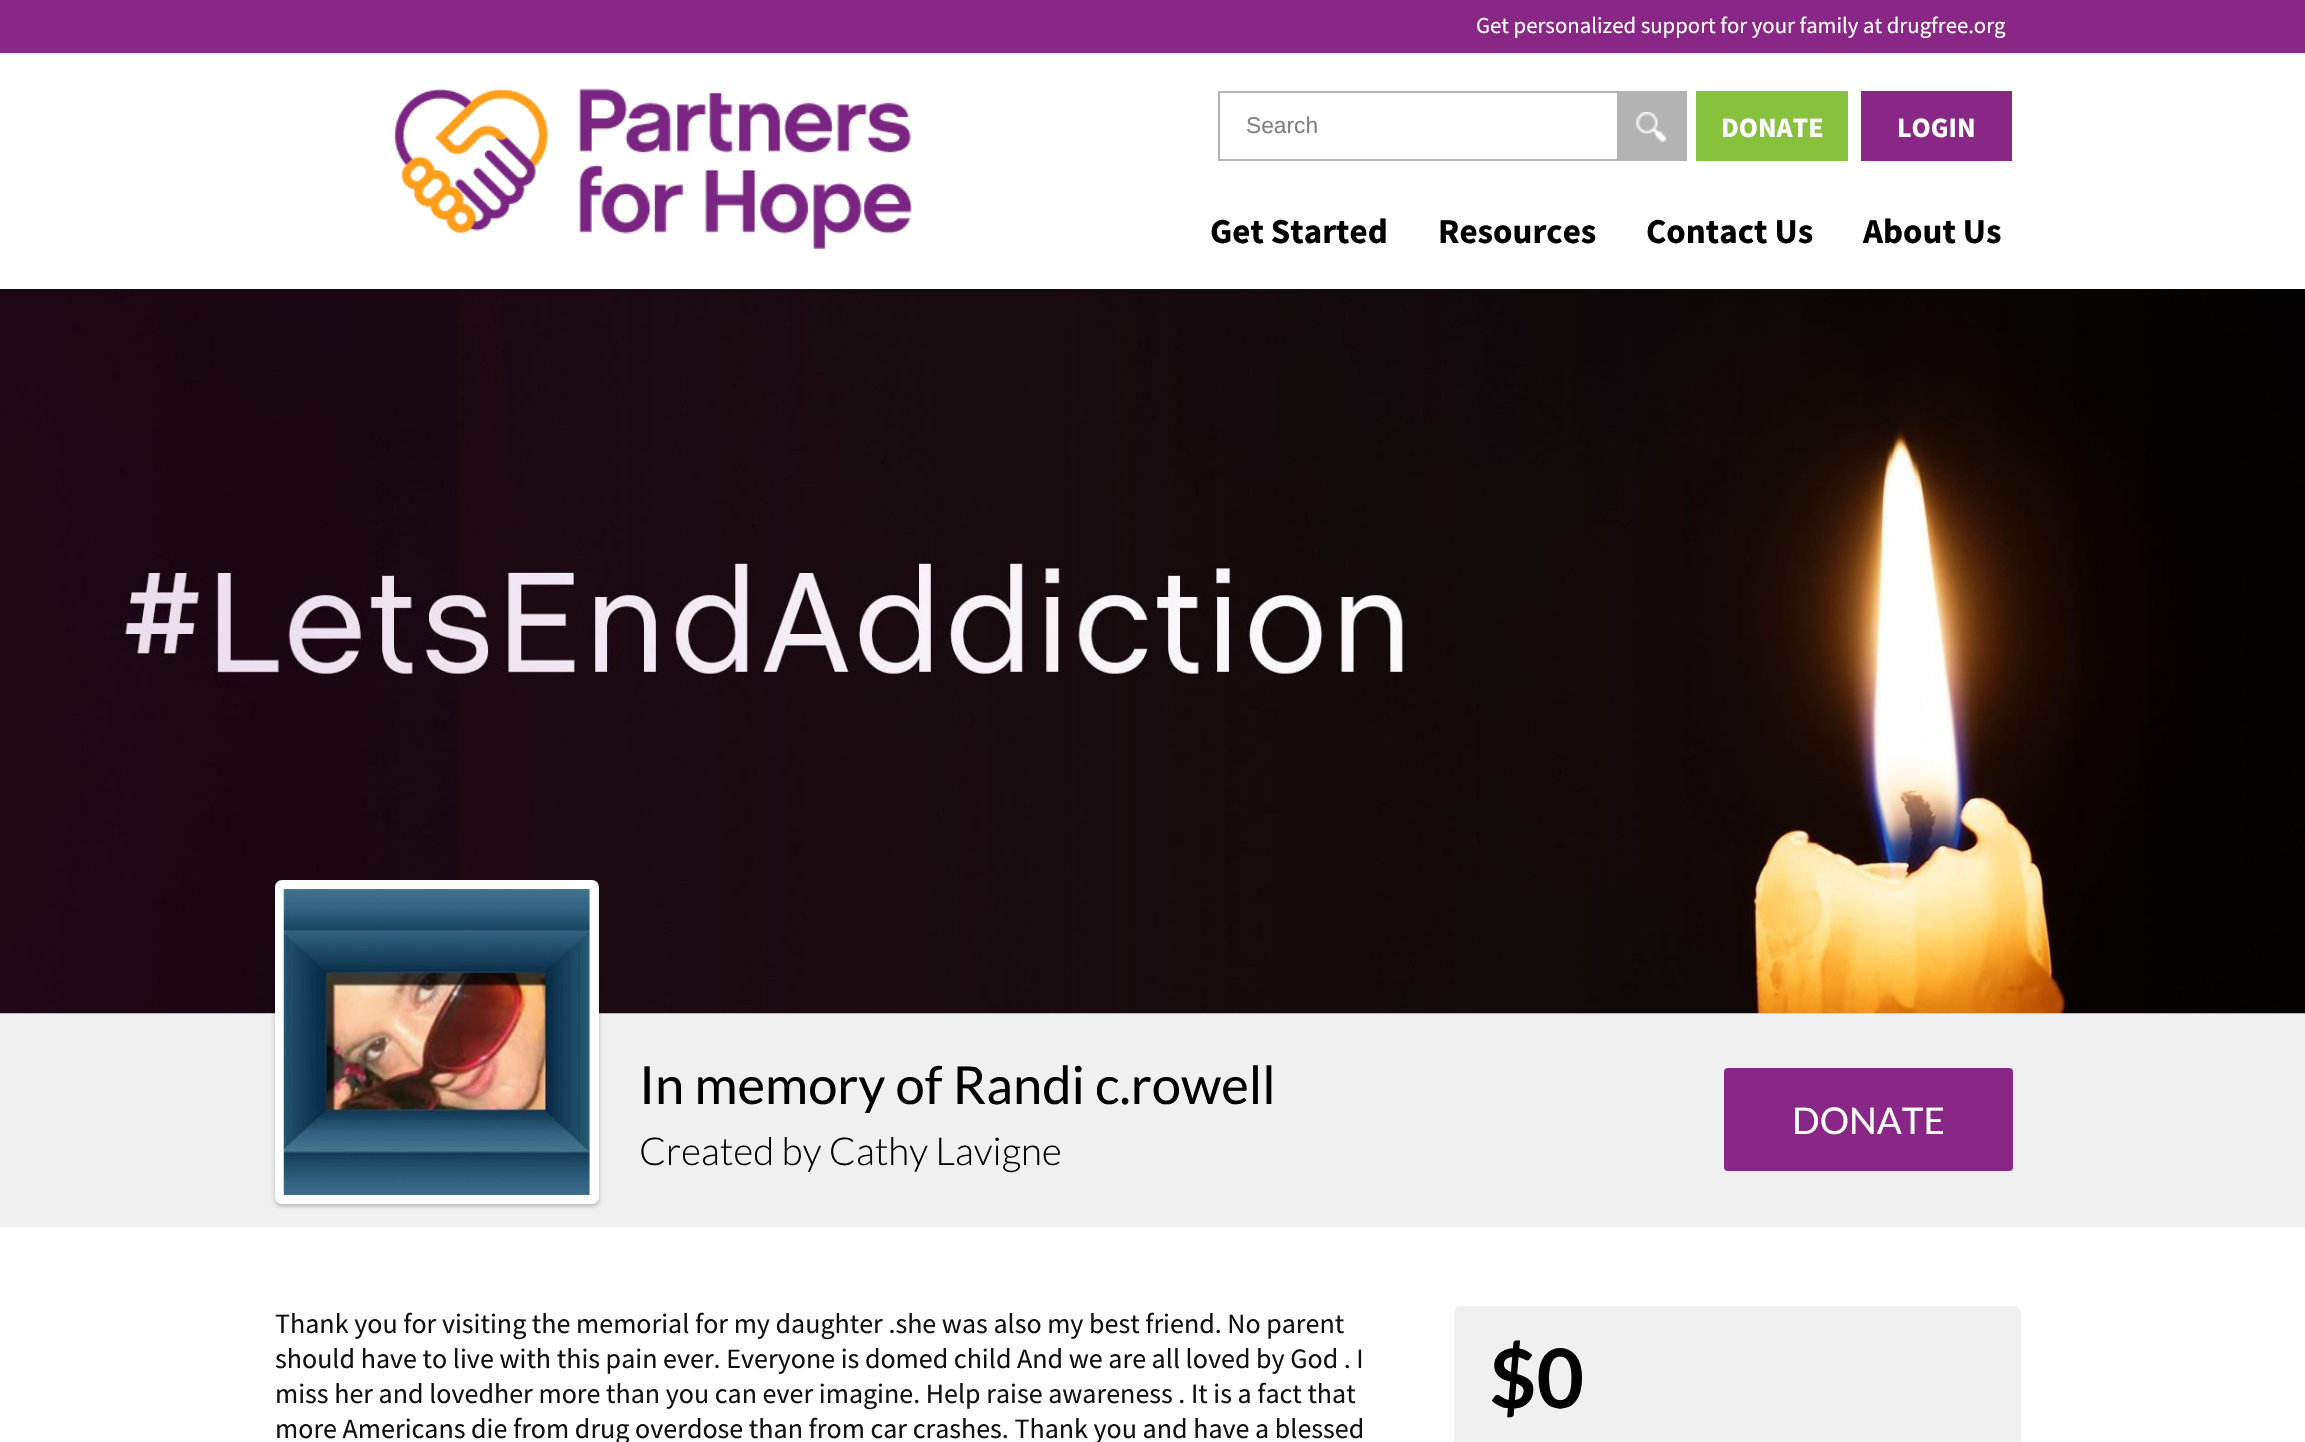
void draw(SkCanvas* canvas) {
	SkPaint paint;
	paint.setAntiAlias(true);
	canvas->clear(0xffffffff);
	paint.setColor(0xff882786);
	canvas->drawRect(SkRect::MakeXYWH(0, 0, 2305, 53), paint);
	SkFont f1(fontMgr->matchFamilyStyle("Source Sans Pro", SkFontStyle::Normal()), 22.75);
	f1.setSubpixel(true);
	paint.setColor(0xffffffff);
	canvas->drawString("Get personalized support for your family at drugfree.org", 1476, 33, f1, paint);
	paint.setStroke(true);
	paint.setStrokeWidth(2);
	paint.setColor(0xffb3b3b3);
	canvas->drawRect(SkRect::MakeXYWH(1219, 92, 467, 68), paint);
	SkFont f2(fontMgr->matchFamilyStyle("Liberation Sans", SkFontStyle::Normal()), 22.75);
	f2.setSubpixel(true);
	paint.setStroke(false);
	paint.setColor(0xff808080);
	canvas->drawString("Search", 1246, 133, f2, paint);
	paint.setColor(0xffb3b3b3);
	canvas->drawRect(SkRect::MakeXYWH(1617, 93, 68, 66), paint);
	canvas->drawImageRect(SkImages::DeferredFromEncodedData(SkData::MakeFromFileName("img1.png")), SkRect::MakeXYWH(1636, 112, 30, 30), SkSamplingOptions());
	paint.setColor(0xff88c13d);
	canvas->drawRect(SkRect::MakeXYWH(1696, 91, 152, 70), paint);
	SkFont f3(fontMgr->matchFamilyStyle("Source Sans Pro", SkFontStyle::Bold()), 28);
	f3.setSubpixel(true);
	paint.setColor(0xffffffff);
	canvas->drawString("DONATE", 1721, 137, f3, paint);
	paint.setColor(0xff882786);
	canvas->drawRect(SkRect::MakeXYWH(1861, 91, 151, 70), paint);
	paint.setColor(0xffffffff);
	canvas->drawString("LOGIN", 1897, 137, f3, paint);
	canvas->drawImageRect(SkImages::DeferredFromEncodedData(SkData::MakeFromFileName("img2.png")), SkRect::MakeXYWH(394, 88, 518, 162), SkSamplingOptions());
	SkFont f4(fontMgr->matchFamilyStyle("Source Sans Pro", SkFontStyle::Bold()), 35);
	f4.setSubpixel(true);
	paint.setColor(0xff000000);
	canvas->drawString("Get Started", 1210, 243, f4, paint);
	canvas->drawString("Resources", 1438, 243, f4, paint);
	canvas->drawString("Contact Us", 1646, 243, f4, paint);
	canvas->drawString("About Us", 1863, 243, f4, paint);
	paint.setColor(0xfff0f0f0);
	canvas->drawRect(SkRect::MakeXYWH(0, 1013, 2305, 214), paint);
	canvas->drawImageRect(SkImages::DeferredFromEncodedData(SkData::MakeFromFileName("img3.png")), SkRect::MakeXYWH(0, 289, 2305, 725), SkSamplingOptions());
	paint.setColor(0x40000000);
	paint.setMaskFilter(SkMaskFilter::MakeBlur(kNormal_SkBlurStyle, 2));
	canvas->drawRoundRect(SkRect::MakeXYWH(275, 882, 324, 324), 7, 7, paint);
	paint.setMaskFilter(nullptr);
	paint.setStroke(true);
	paint.setStrokeWidth(9);
	paint.setColor(0xffffffff);
	canvas->drawRoundRect(SkRect::MakeXYWH(279.5, 884.5, 315, 315), 2.5, 2.5, paint);
	paint.setStroke(false);
	canvas->drawRect(SkRect::MakeXYWH(589, 889, 1, 306), paint);
	canvas->drawImageRect(SkImages::DeferredFromEncodedData(SkData::MakeFromFileName("img4.png")), SkRect::MakeXYWH(283, 889, 307, 307), SkSamplingOptions());
	SkFont f5(fontMgr->matchFamilyStyle("Lato", SkFontStyle::Normal()), 52.5);
	f5.setSubpixel(true);
	paint.setColor(0xff000000);
	canvas->drawString("In memory of Randi c.rowell", 639, 1104, f5, paint);
	SkFont f6(fontMgr->matchFamilyStyle("Lato", SkFontStyle(300, SkFontStyle::kNormal_Width, SkFontStyle::kUpright_Slant)), 38.5);
	f6.setSubpixel(true);
	canvas->drawString("Created by Cathy Lavigne", 639, 1165, f6, paint);
	paint.setColor(0xff882786);
	canvas->drawRoundRect(SkRect::MakeXYWH(1724, 1068, 289, 103), 4, 4, paint);
	SkFont f7(fontMgr->matchFamilyStyle("Lato", SkFontStyle::Normal()), 36.75);
	f7.setSubpixel(true);
	paint.setColor(0xffffffff);
	canvas->drawString("DONATE", 1792, 1134, f7, paint);
	SkFont f8(fontMgr->matchFamilyStyle("Source Sans Pro", SkFontStyle::Normal()), 28);
	f8.setSubpixel(true);
	paint.setColor(0xff111111);
	canvas->drawString("Thank you for visiting the memorial for my daughter .she was also my best friend. No parent", 275, 1333, f8, paint);
	canvas->drawString("should have to live with this pain ever. Everyone is domed child And we are all loved by God . I", 275, 1368, f8, paint);
	canvas->drawString("miss her and lovedher more than you can ever imagine. Help raise awareness . It is a fact that", 275, 1403, f8, paint);
	canvas->drawString("more Americans die from drug overdose than from car crashes. Thank you and have a blessed", 275, 1438, f8, paint);
	paint.setColor(0xfff0f0f0);
	canvas->drawRoundRect(SkRect::MakeXYWH(1454, 1306, 567, 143), 7, 7, paint);
	SkFont f9(fontMgr->matchFamilyStyle("Lato", SkFontStyle::Bold()), 82);
	f9.setSubpixel(true);
	paint.setColor(0xff000000);
	canvas->drawString("$0", 1489, 1408, f9, paint);
}
